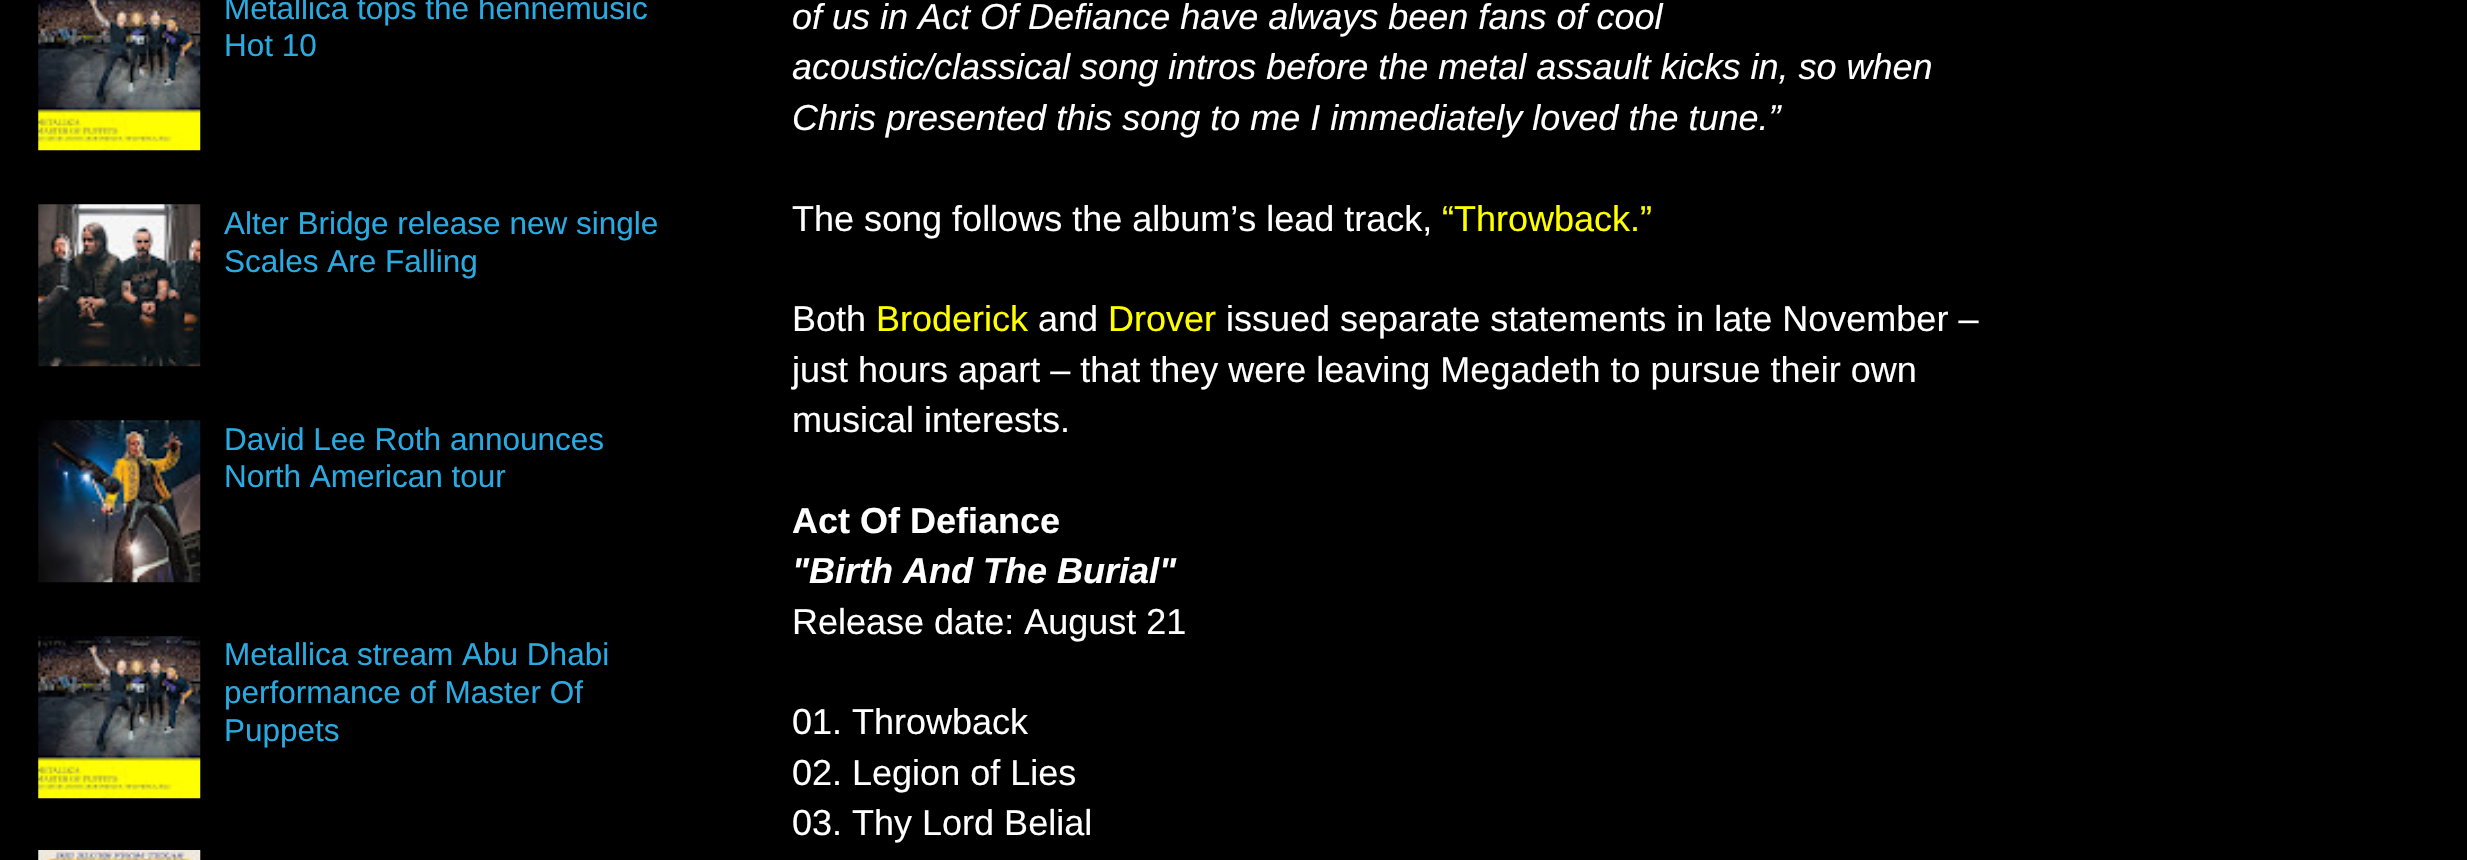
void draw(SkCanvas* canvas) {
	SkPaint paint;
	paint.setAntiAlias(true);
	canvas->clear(0xff000000);
	canvas->drawImageRect(SkImages::DeferredFromEncodedData(SkData::MakeFromFileName("img1.png")), SkRect::MakeXYWH(38, 0, 163, 151), SkSamplingOptions());
	SkFont f1(fontMgr->matchFamilyStyle("Liberation Sans", SkFontStyle::Normal()), 31.5);
	f1.setSubpixel(true);
	paint.setColor(0xff29aae1);
	canvas->drawString("Metallica tops the hennemusic", 224, 19, f1, paint);
	canvas->drawString("Hot 10", 224, 56, f1, paint);
	canvas->drawImageRect(SkImages::DeferredFromEncodedData(SkData::MakeFromFileName("img2.png")), SkRect::MakeXYWH(38, 204, 163, 163), SkSamplingOptions());
	canvas->drawString("Alter Bridge release new single", 224, 234, f1, paint);
	canvas->drawString("Scales Are Falling", 224, 272, f1, paint);
	canvas->drawImageRect(SkImages::DeferredFromEncodedData(SkData::MakeFromFileName("img3.png")), SkRect::MakeXYWH(38, 420, 163, 163), SkSamplingOptions());
	canvas->drawString("David Lee Roth announces", 224, 450, f1, paint);
	canvas->drawString("North American tour", 224, 487, f1, paint);
	canvas->drawImageRect(SkImages::DeferredFromEncodedData(SkData::MakeFromFileName("img4.png")), SkRect::MakeXYWH(38, 636, 163, 163), SkSamplingOptions());
	canvas->drawString("Metallica stream Abu Dhabi", 224, 665, f1, paint);
	canvas->drawString("performance of Master Of", 224, 703, f1, paint);
	canvas->drawString("Puppets", 224, 741, f1, paint);
	canvas->drawImageRect(SkImages::DeferredFromEncodedData(SkData::MakeFromFileName("img5.png")), SkRect::MakeXYWH(38, 850, 163, 10), SkSamplingOptions());
	SkFont f2(fontMgr->matchFamilyStyle("Liberation Sans", SkFontStyle::Italic()), 36);
	f2.setSubpixel(true);
	paint.setColor(0xffffffff);
	canvas->drawString("of us in Act Of Defiance have always been fans of cool", 792, 29, f2, paint);
	canvas->drawString("acoustic/classical song intros before the metal assault kicks in, so when", 792, 79, f2, paint);
	canvas->drawString("Chris presented this song to me I immediately loved the tune.”", 792, 130, f2, paint);
	SkFont f3(fontMgr->matchFamilyStyle("Liberation Sans", SkFontStyle::Normal()), 36);
	f3.setSubpixel(true);
	canvas->drawString("The song follows the album’s lead track,", 792, 231, f3, paint);
	paint.setColor(0xffffff00);
	canvas->drawString("“Throwback.”", 1442, 231, f3, paint);
	paint.setColor(0xffffffff);
	canvas->drawString("Both", 792, 331, f3, paint);
	paint.setColor(0xffffff00);
	canvas->drawString("Broderick", 876, 331, f3, paint);
	paint.setColor(0xffffffff);
	canvas->drawString("and", 1038, 331, f3, paint);
	paint.setColor(0xffffff00);
	canvas->drawString("Drover", 1108, 331, f3, paint);
	paint.setColor(0xffffffff);
	canvas->drawString("issued separate statements in late November –", 1226, 331, f3, paint);
	canvas->drawString("just hours apart – that they were leaving Megadeth to pursue their own", 792, 382, f3, paint);
	canvas->drawString("musical interests.", 792, 432, f3, paint);
	SkFont f4(fontMgr->matchFamilyStyle("Liberation Sans", SkFontStyle::Bold()), 36);
	f4.setSubpixel(true);
	canvas->drawString("Act Of Defiance", 792, 533, f4, paint);
	SkFont f5(fontMgr->matchFamilyStyle("Liberation Sans", SkFontStyle::BoldItalic()), 36);
	f5.setSubpixel(true);
	canvas->drawString("\"Birth And The Burial\"", 792, 583, f5, paint);
	canvas->drawString("Release date: August 21", 792, 634, f3, paint);
	canvas->drawString("01. Throwback", 792, 734, f3, paint);
	canvas->drawString("02. Legion of Lies", 792, 785, f3, paint);
	canvas->drawString("03. Thy Lord Belial", 792, 835, f3, paint);
}
